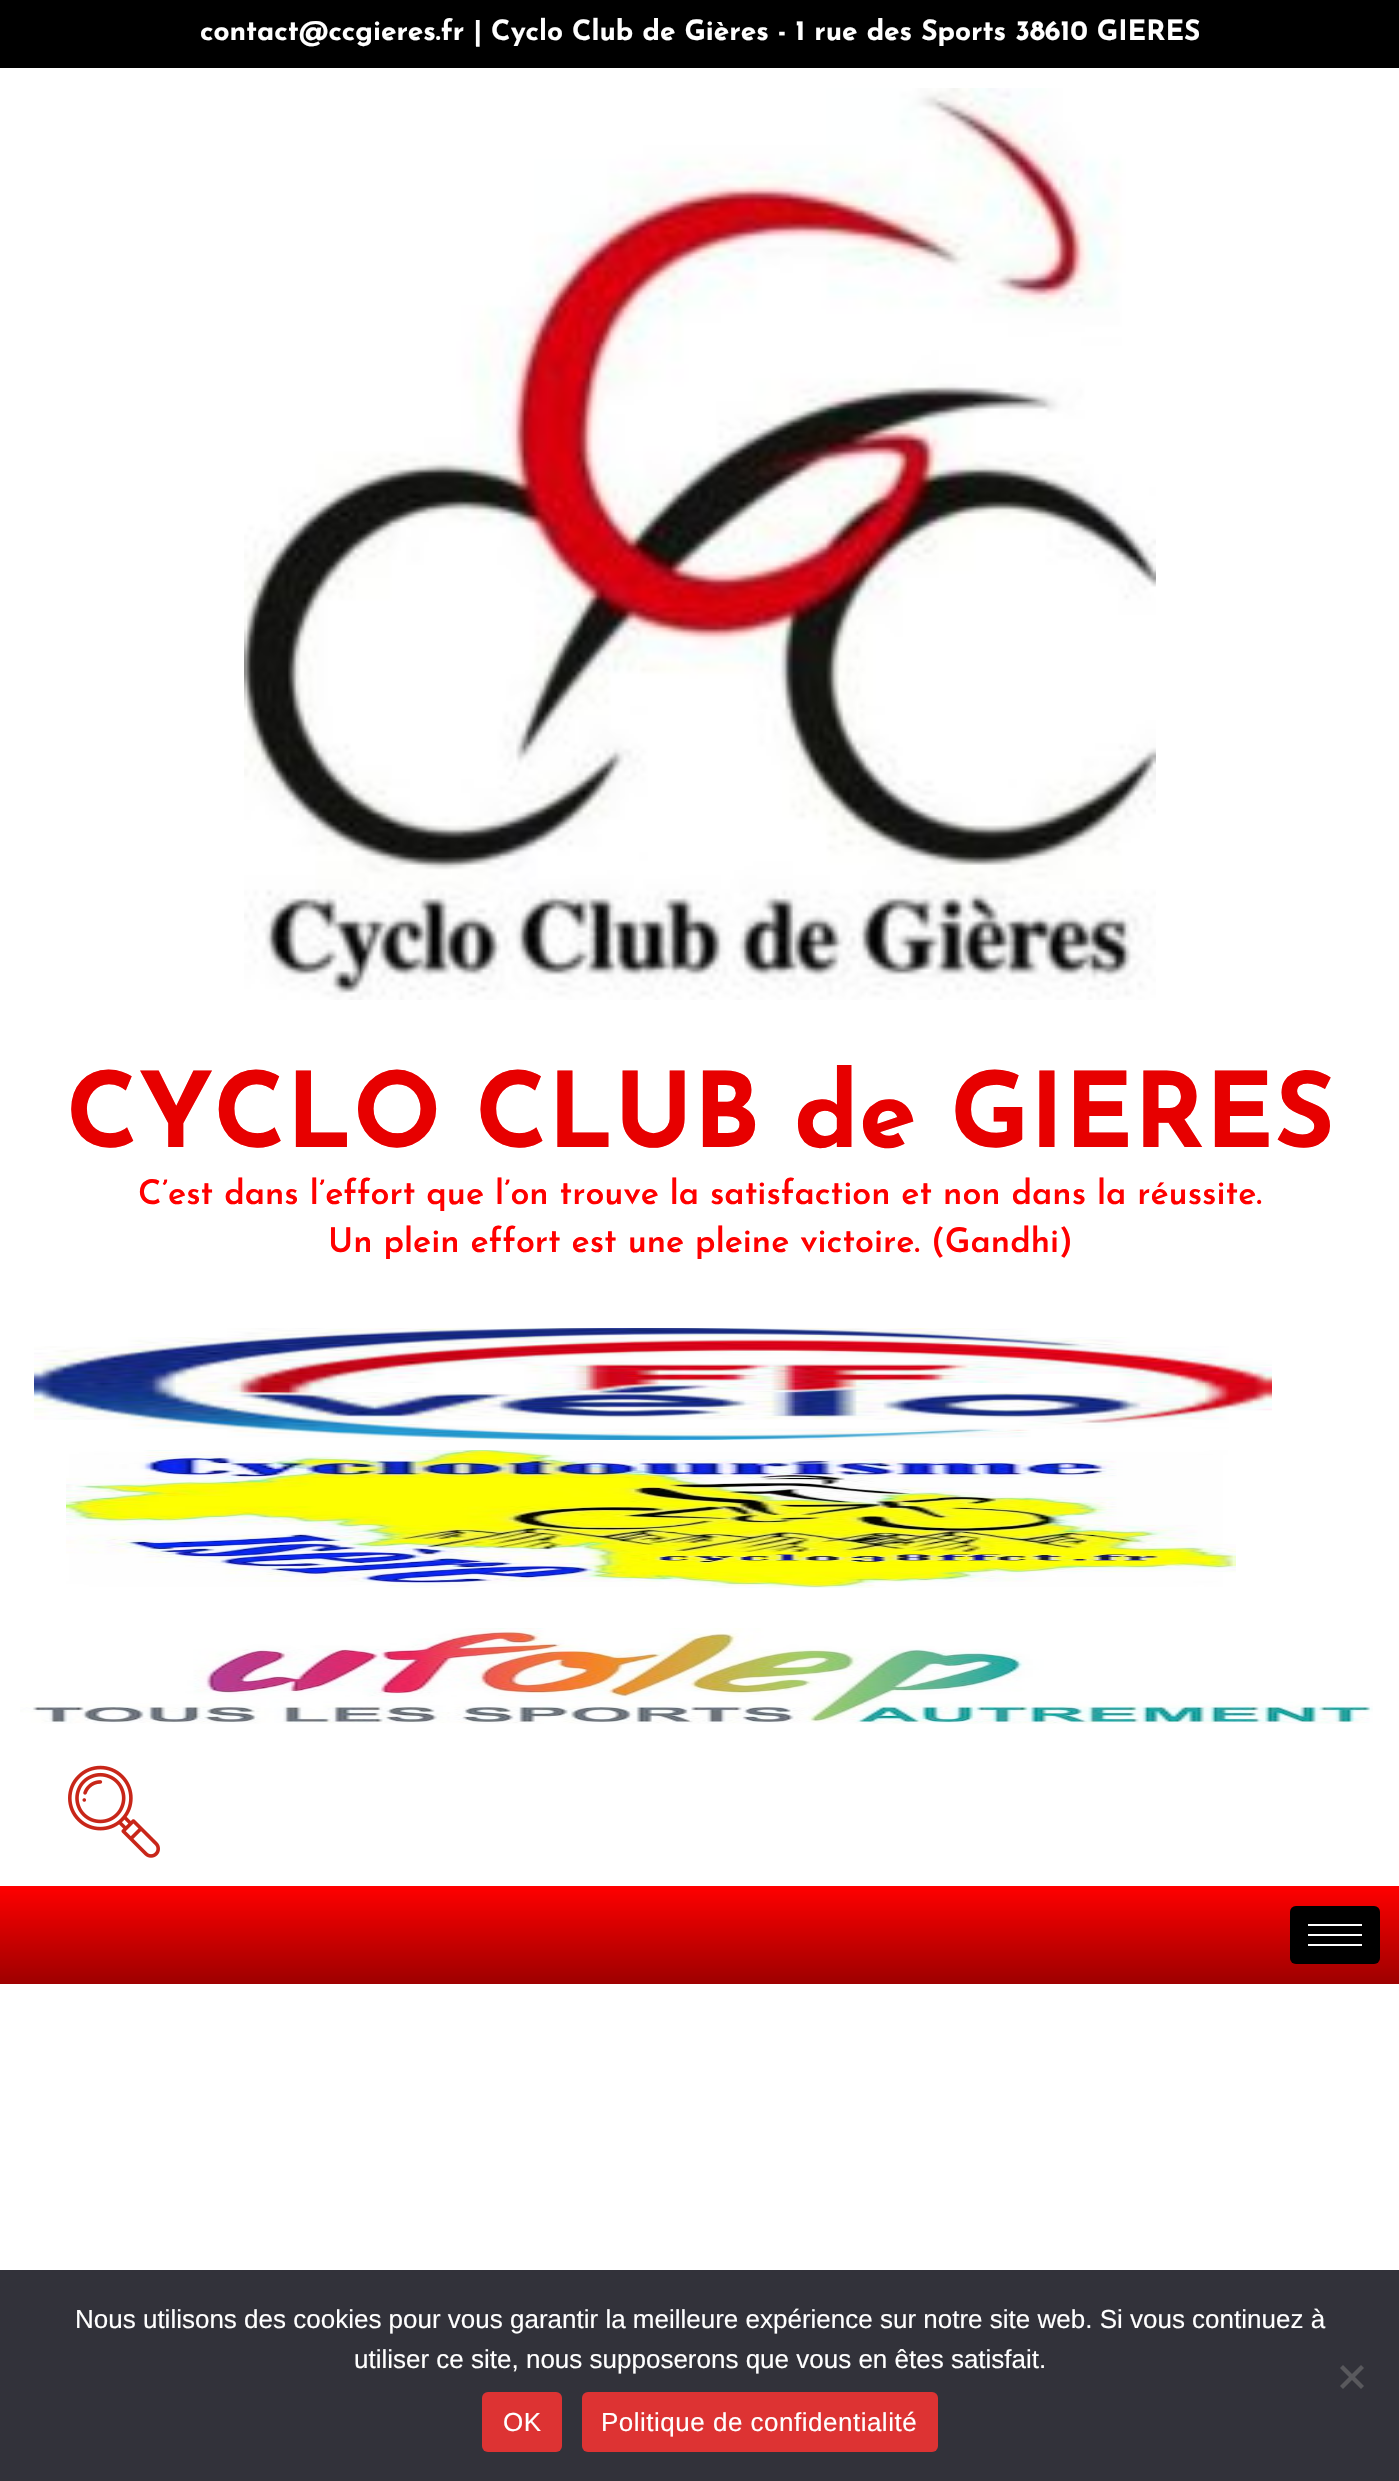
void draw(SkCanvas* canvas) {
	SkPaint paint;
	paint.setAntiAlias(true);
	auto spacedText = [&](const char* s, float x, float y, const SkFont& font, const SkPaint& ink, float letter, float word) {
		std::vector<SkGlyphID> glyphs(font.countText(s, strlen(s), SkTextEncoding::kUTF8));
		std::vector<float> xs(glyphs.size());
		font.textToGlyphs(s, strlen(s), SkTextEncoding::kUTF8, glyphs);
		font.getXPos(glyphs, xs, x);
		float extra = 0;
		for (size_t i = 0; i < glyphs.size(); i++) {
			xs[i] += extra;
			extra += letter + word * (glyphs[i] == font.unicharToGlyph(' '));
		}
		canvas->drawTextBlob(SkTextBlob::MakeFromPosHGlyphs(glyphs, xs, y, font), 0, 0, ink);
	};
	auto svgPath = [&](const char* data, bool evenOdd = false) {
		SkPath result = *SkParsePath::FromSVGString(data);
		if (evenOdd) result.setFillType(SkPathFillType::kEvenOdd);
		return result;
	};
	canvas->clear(0xffffffff);
	paint.setColor(0xff000000);
	canvas->drawRect(SkRect::MakeXYWH(0, 0, 1399, 68), paint);
	SkFont f1(fontMgr->matchFamilyStyle("Josefin Sans", SkFontStyle::Bold()), 28);
	f1.setSubpixel(true);
	paint.setColor(0xffffffff);
	canvas->drawString("contact@ccgieres.fr | Cyclo Club de Gières - 1 rue des Sports 38610 GIERES", 200, 40, f1, paint);
	canvas->drawImageRect(SkImages::DeferredFromEncodedData(SkData::MakeFromFileName("img1.png")), SkRect::MakeXYWH(244, 88, 912, 912), SkSamplingOptions());
	SkFont f2(fontMgr->matchFamilyStyle("Josefin Sans", SkFontStyle::Bold()), 104);
	f2.setSubpixel(true);
	paint.setColor(0xffe70000);
	canvas->drawString("CYCLO CLUB de GIERES", 66, 1147, f2, paint);
	SkFont f3(fontMgr->matchFamilyStyle("Josefin Sans", SkFontStyle(600, SkFontStyle::kNormal_Width, SkFontStyle::kUpright_Slant)), 34);
	f3.setSubpixel(true);
	paint.setColor(0xffff0000);
	canvas->drawString("C’est dans l’effort que l’on trouve la satisfaction et non dans la réussite.", 138, 1204, f3, paint);
	canvas->drawString("Un plein effort est une pleine victoire. (Gandhi)", 328, 1252, f3, paint);
	canvas->drawImageRect(SkImages::DeferredFromEncodedData(SkData::MakeFromFileName("img2.png")), SkRect::MakeXYWH(34, 1328, 1238, 112), SkSamplingOptions());
	canvas->drawImageRect(SkImages::DeferredFromEncodedData(SkData::MakeFromFileName("img3.png")), SkRect::MakeXYWH(66, 1450, 1170, 138), SkSamplingOptions());
	canvas->drawImageRect(SkImages::DeferredFromEncodedData(SkData::MakeFromFileName("img4.png")), SkRect::MakeXYWH(20, 1628, 1353, 96), SkSamplingOptions());
	canvas->drawImageRect(SkImages::DeferredFromEncodedData(SkData::MakeFromFileName("img5.png")), SkRect::MakeXYWH(68, 1765, 92, 93), SkSamplingOptions());
	{
		const SkColor colors[] = {0xffff0000, 0xff9d0000};
		const float stops[] = {0, 1};
		const SkPoint ends[] = {{700, 1886}, {700, 1984}};
		paint.setShader(SkGradientShader::MakeLinear(ends, colors, stops, 2, SkTileMode::kClamp));
		paint.setAlpha(255);
	}
	canvas->drawRect(SkRect::MakeXYWH(0, 1886, 1399, 98), paint);
	paint.setShader(nullptr);
	paint.setColor(0xff000000);
	canvas->drawRoundRect(SkRect::MakeXYWH(1290, 1906, 90, 58), 6, 6, paint);
	paint.setStroke(true);
	paint.setStrokeWidth(2);
	paint.setColor(0x33000000);
	canvas->drawRoundRect(SkRect::MakeXYWH(1291, 1907, 88, 56), 5, 5, paint);
	paint.setStroke(false);
	paint.setColor(0xffffffff);
	canvas->drawRect(SkRect::MakeXYWH(1308, 1924, 54, 2), paint);
	canvas->drawRect(SkRect::MakeXYWH(1308, 1934, 54, 2), paint);
	canvas->drawRect(SkRect::MakeXYWH(1308, 1944, 54, 2), paint);
	paint.setColor(0xff32323a);
	canvas->drawRect(SkRect::MakeXYWH(0, 2270, 1399, 211), paint);
	SkFont f4(fontMgr->matchFamilyStyle("Liberation Sans", SkFontStyle::Normal()), 26);
	f4.setSubpixel(true);
	paint.setColor(0xffffffff);
	canvas->drawString("Nous utilisons des cookies pour vous garantir la meilleure expérience sur notre site web. Si vous continuez à", 75, 2328, f4, paint);
	canvas->drawString("utiliser ce site, nous supposerons que vous en êtes satisfait.", 354, 2368, f4, paint);
	paint.setColor(0xff59595d);
	canvas->drawPath(svgPath("M1361 2365L1364 2368L1343 2389L1340 2386Z"), paint);
	canvas->drawPath(svgPath("M1340 2368L1343 2365L1364 2386L1361 2389Z"), paint);
	paint.setColor(0xffdd3333);
	canvas->drawRoundRect(SkRect::MakeXYWH(482, 2392, 80, 60), 6, 6, paint);
	paint.setColor(0xffffffff);
	spacedText("OK", 503, 2431, f4, paint, 0.5, 0);
	paint.setColor(0xffdd3333);
	canvas->drawRoundRect(SkRect::MakeXYWH(582, 2392, 356, 60), 6, 6, paint);
	paint.setColor(0xffffffff);
	spacedText("Politique de confidentialité", 601, 2431, f4, paint, 0.5, 0);
}
